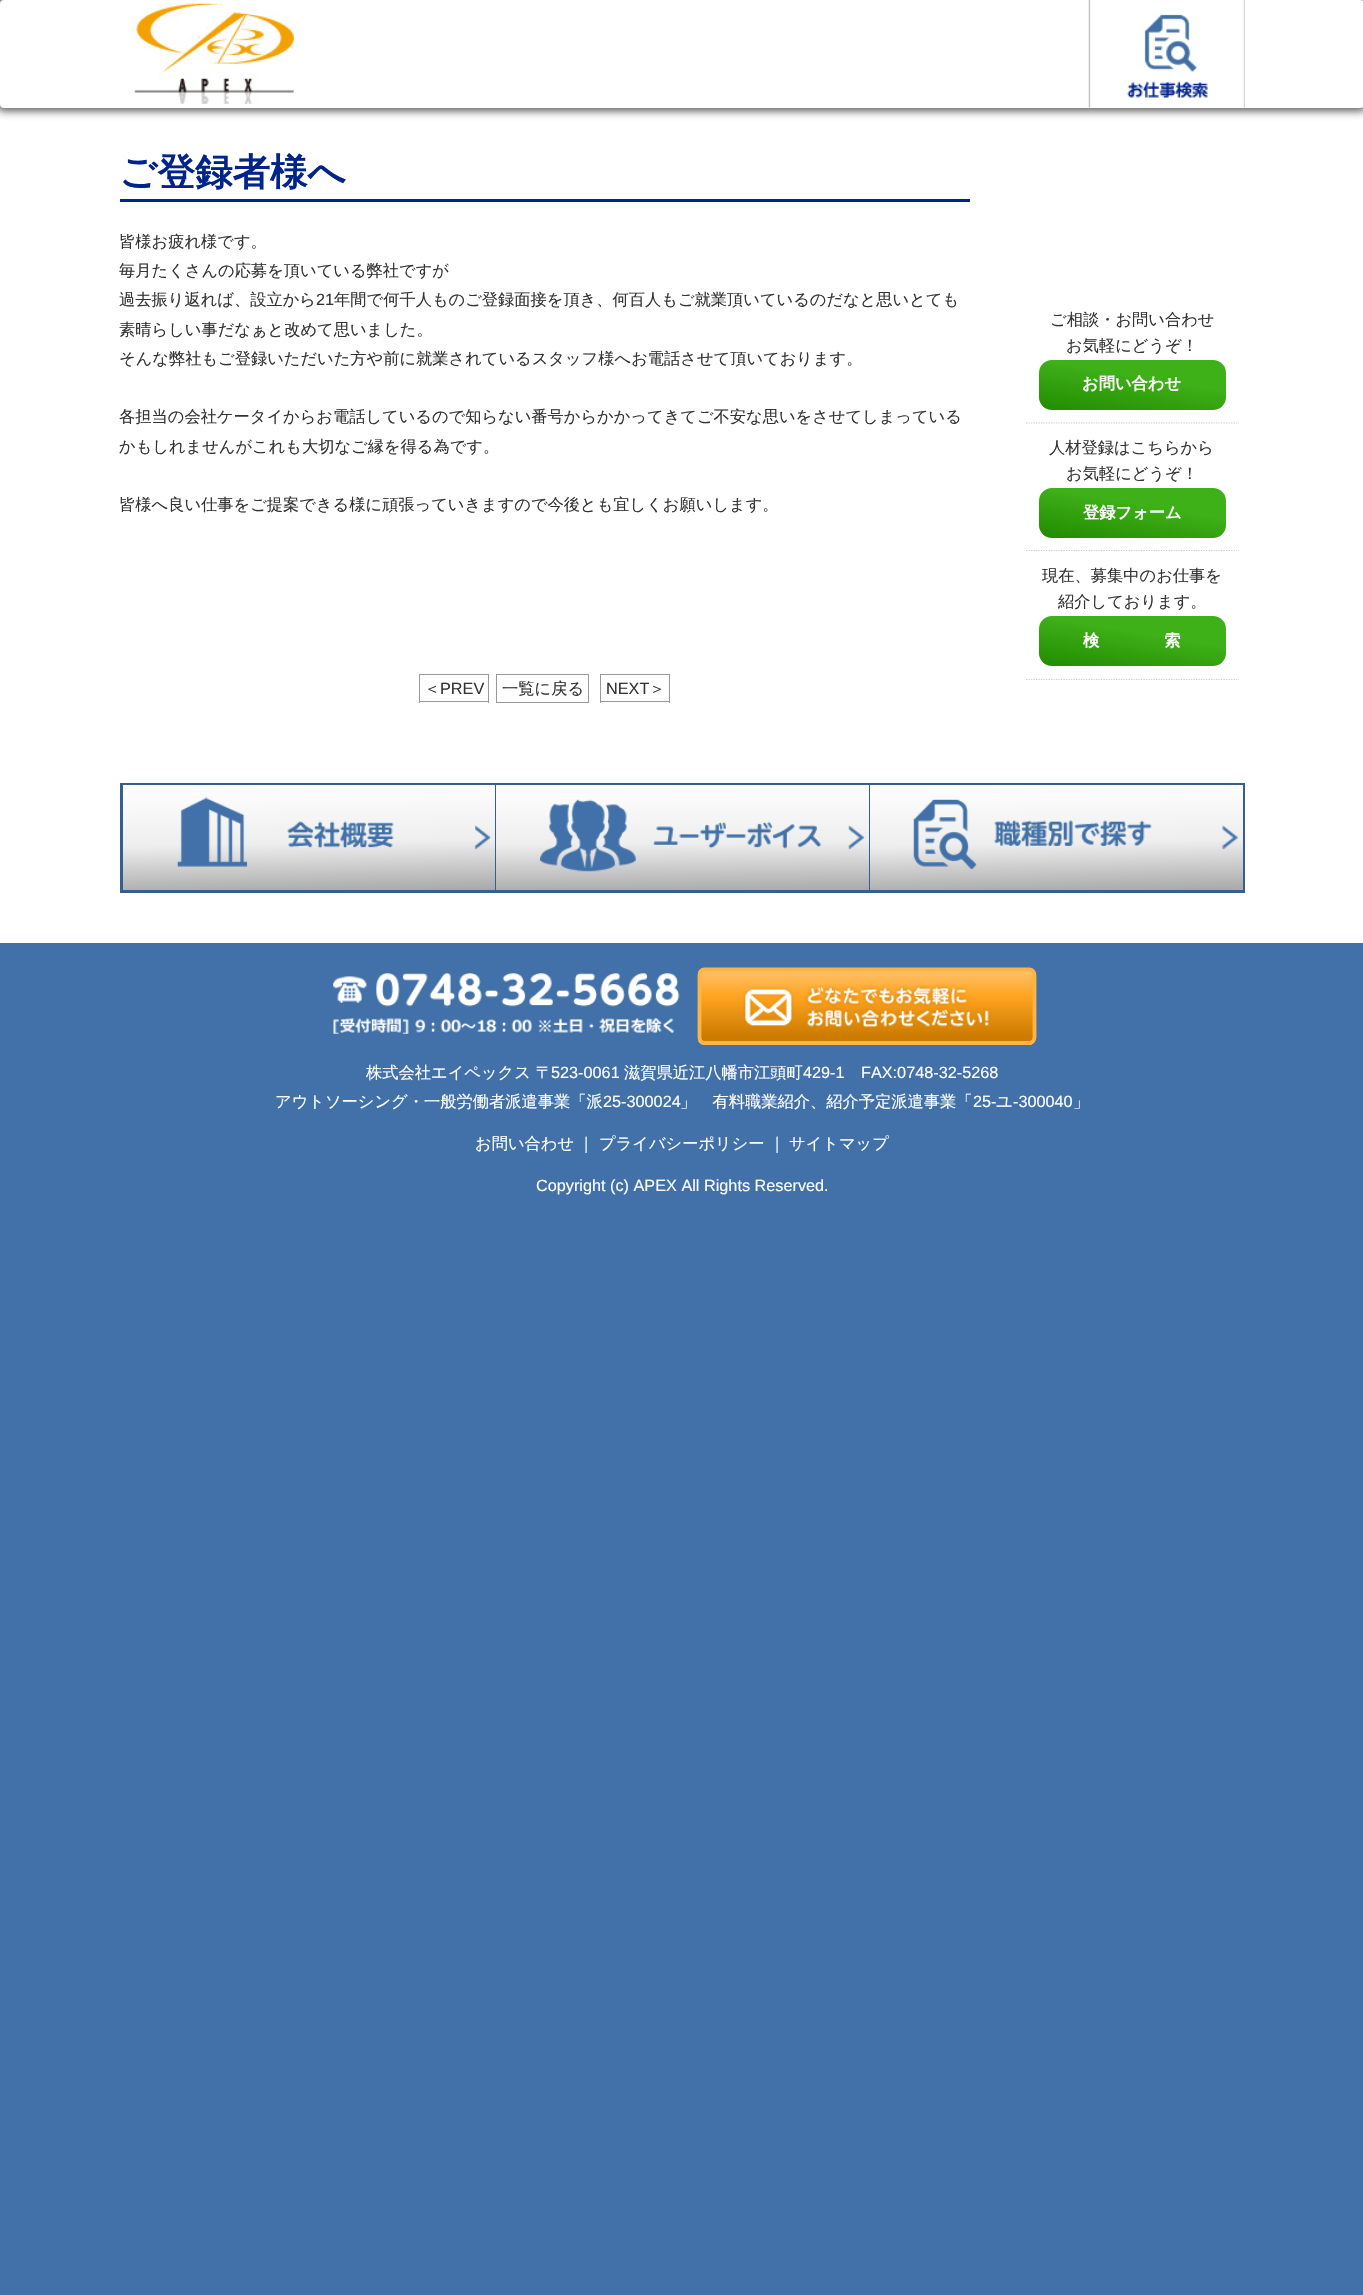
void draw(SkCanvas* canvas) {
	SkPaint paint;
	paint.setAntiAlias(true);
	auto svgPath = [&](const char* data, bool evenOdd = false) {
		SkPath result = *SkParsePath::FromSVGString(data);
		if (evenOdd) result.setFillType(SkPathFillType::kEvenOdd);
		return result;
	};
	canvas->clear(0xff4171a8);
	paint.setColor(0xffffffff);
	canvas->drawRect(SkRect::MakeXYWH(0, 0, 1363, 943), paint);
	paint.setColor(0xa6000000);
	paint.setMaskFilter(SkMaskFilter::MakeBlur(kNormal_SkBlurStyle, 4));
	canvas->drawRoundRect(SkRect::MakeXYWH(-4, -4, 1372, 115), 8, 8, paint);
	paint.setMaskFilter(nullptr);
	paint.setColor(0xffffffff);
	canvas->drawRoundRect(SkRect::MakeXYWH(0, 0, 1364, 108), 4, 4, paint);
	canvas->drawImageRect(SkImages::DeferredFromEncodedData(SkData::MakeFromFileName("img1.png")), SkRect::MakeXYWH(133, 3, 161, 101), SkSamplingOptions());
	canvas->drawImageRect(SkImages::DeferredFromEncodedData(SkData::MakeFromFileName("img2.png")), SkRect::MakeXYWH(1088, 0, 157, 108), SkSamplingOptions());
	paint.setColor(0xff00238c);
	canvas->drawRect(SkRect::MakeXYWH(120, 199, 850, 3), paint);
	SkFont f1(fontMgr->matchFamilyStyle("WenQuanYi Zen Hei", SkFontStyle::Bold()), 37.5);
	f1.setSubpixel(true);
	canvas->drawString("ご登録者様へ", 119, 185, f1, paint);
	SkFont f2(fontMgr->matchFamilyStyle("WenQuanYi Zen Hei", SkFontStyle(500, SkFontStyle::kNormal_Width, SkFontStyle::kUpright_Slant)), 16.25);
	f2.setSubpixel(true);
	paint.setColor(0xff333333);
	canvas->drawString("皆様お疲れ様です。", 119, 247, f2, paint);
	canvas->drawString("毎月たくさんの応募を頂いている弊社ですが", 119, 276, f2, paint);
	canvas->drawString("過去振り返れば、設立から", 119, 305, f2, paint);
	SkFont f3(fontMgr->matchFamilyStyle("Liberation Sans", SkFontStyle::Normal()), 16.25);
	f3.setSubpixel(true);
	canvas->drawString("21", 316, 305, f3, paint);
	canvas->drawString("年間で何千人ものご登録面接を頂き、何百人もご就業頂いているのだなと思いとても", 334, 305, f2, paint);
	canvas->drawString("素晴らしい事だなぁと改めて思いました。", 119, 335, f2, paint);
	canvas->drawString("そんな弊社もご登録いただいた方や前に就業されているスタッフ様へお電話させて頂いております。", 119, 364, f2, paint);
	canvas->drawString("各担当の会社ケータイからお電話しているので知らない番号からかかってきてご不安な思いをさせてしまっている", 119, 422, f2, paint);
	canvas->drawString("かもしれませんがこれも大切なご縁を得る為です。", 119, 452, f2, paint);
	canvas->drawString("皆様へ良い仕事をご提案できる様に頑張っていきますので今後とも宜しくお願いします。", 119, 510, f2, paint);
	canvas->drawString("＜", 424, 694, f2, paint);
	paint.setColor(0xff999999);
	canvas->drawRect(SkRect::MakeXYWH(419, 701, 21, 1), paint);
	canvas->drawRect(SkRect::MakeXYWH(419, 674, 70, 1), paint);
	canvas->drawRect(SkRect::MakeXYWH(419, 674, 1, 29), paint);
	paint.setColor(0xff333333);
	canvas->drawString("PREV", 440, 694, f3, paint);
	paint.setColor(0xff999999);
	canvas->drawRect(SkRect::MakeXYWH(488, 674, 1, 29), paint);
	canvas->drawRect(SkRect::MakeXYWH(440, 701, 49, 1), paint);
	paint.setStroke(true);
	paint.setStrokeWidth(1);
	canvas->drawRect(SkRect::MakeXYWH(496.5, 674.5, 92, 28), paint);
	paint.setStroke(false);
	paint.setColor(0xff333333);
	canvas->drawString("一覧に戻る", 502, 694, f2, paint);
	canvas->drawString("NEXT", 606, 694, f3, paint);
	paint.setColor(0xff999999);
	canvas->drawRect(SkRect::MakeXYWH(600, 674, 70, 1), paint);
	canvas->drawRect(SkRect::MakeXYWH(600, 701, 49, 1), paint);
	canvas->drawRect(SkRect::MakeXYWH(600, 674, 1, 29), paint);
	paint.setColor(0xff333333);
	canvas->drawString("＞", 649, 694, f2, paint);
	paint.setColor(0xff999999);
	canvas->drawRect(SkRect::MakeXYWH(669, 674, 1, 29), paint);
	canvas->drawRect(SkRect::MakeXYWH(649, 701, 21, 1), paint);
	paint.setStroke(true);
	paint.setStrokeWidth(1.2);
	paint.setColor(0xffcccccc);
	paint.setPathEffect(SkDashPathEffect::Make({{1.25f, 1.25f}}, 0));
	canvas->drawPath(svgPath("M1026 423H1239"), paint);
	paint.setPathEffect(nullptr);
	paint.setStroke(false);
	paint.setColor(0xff333333);
	canvas->drawString("ご相談・お問い合わせ", 1050, 325, f2, paint);
	canvas->drawString("お気軽にどうぞ！", 1066, 351, f2, paint);
	{
		const SkColor colors[] = {0xff3eb018, 0xff3eb018, 0xff238c00};
		const float stops[] = {0, 0.38, 1};
		const SkPoint ends[] = {{1139, 346}, {1126, 424}};
		paint.setShader(SkGradientShader::MakeLinear(ends, colors, stops, 3, SkTileMode::kClamp));
		paint.setAlpha(255);
	}
	canvas->drawRoundRect(SkRect::MakeXYWH(1039, 360, 187, 50), 13, 13, paint);
	SkFont f4(fontMgr->matchFamilyStyle("WenQuanYi Zen Hei", SkFontStyle::Bold()), 16.25);
	f4.setSubpixel(true);
	paint.setShader(nullptr);
	paint.setColor(0xffffffff);
	canvas->drawString("お問い合わせ", 1082, 389, f4, paint);
	paint.setStroke(true);
	paint.setColor(0xffcccccc);
	paint.setPathEffect(SkDashPathEffect::Make({{1.25f, 1.25f}}, 0));
	canvas->drawPath(svgPath("M1026 550.5H1239"), paint);
	paint.setPathEffect(nullptr);
	paint.setStroke(false);
	paint.setColor(0xff333333);
	canvas->drawString("人材登録はこちらから", 1049, 453, f2, paint);
	canvas->drawString("お気軽にどうぞ！", 1066, 479, f2, paint);
	{
		const SkColor colors[] = {0xff3eb018, 0xff3eb018, 0xff238c00};
		const float stops[] = {0, 0.38, 1};
		const SkPoint ends[] = {{1139, 474}, {1126, 551}};
		paint.setShader(SkGradientShader::MakeLinear(ends, colors, stops, 3, SkTileMode::kClamp));
		paint.setAlpha(255);
	}
	canvas->drawRoundRect(SkRect::MakeXYWH(1039, 488, 187, 50), 13, 13, paint);
	paint.setShader(nullptr);
	paint.setColor(0xffffffff);
	canvas->drawString("登録フォーム", 1083, 518, f4, paint);
	paint.setStroke(true);
	paint.setColor(0xffcccccc);
	paint.setPathEffect(SkDashPathEffect::Make({{1.25f, 1.25f}}, 0));
	canvas->drawPath(svgPath("M1026 679.5H1239"), paint);
	paint.setPathEffect(nullptr);
	paint.setStroke(false);
	paint.setColor(0xff333333);
	canvas->drawString("現在、募集中のお仕事を", 1042, 581, f2, paint);
	canvas->drawString("紹介しております。", 1058, 607, f2, paint);
	{
		const SkColor colors[] = {0xff3eb018, 0xff3eb018, 0xff238c00};
		const float stops[] = {0, 0.38, 1};
		const SkPoint ends[] = {{1139, 602}, {1126, 680}};
		paint.setShader(SkGradientShader::MakeLinear(ends, colors, stops, 3, SkTileMode::kClamp));
		paint.setAlpha(255);
	}
	canvas->drawRoundRect(SkRect::MakeXYWH(1039, 616, 187, 50), 13, 13, paint);
	paint.setShader(nullptr);
	paint.setColor(0xffffffff);
	canvas->drawString("検　　　　索", 1083, 646, f4, paint);
	paint.setStroke(true);
	paint.setStrokeWidth(3);
	paint.setColor(0xff385d91);
	canvas->drawRect(SkRect::MakeXYWH(121.5, 784.5, 1122, 107), paint);
	paint.setStroke(false);
	{
		const SkColor colors[] = {0xffffffff, 0xffeeeeee, 0xffaaaaaa, 0xffaaaaaa};
		const float stops[] = {0, 0.55, 0.99, 1};
		const SkPoint ends[] = {{308, 782}, {310, 893}};
		paint.setShader(SkGradientShader::MakeLinear(ends, colors, stops, 4, SkTileMode::kClamp));
		paint.setAlpha(255);
	}
	canvas->drawRect(SkRect::MakeXYWH(123, 785, 372, 105), paint);
	paint.setShader(nullptr);
	paint.setColor(0xff385d91);
	canvas->drawRect(SkRect::MakeXYWH(495, 785, 1, 105), paint);
	canvas->drawImageRect(SkImages::DeferredFromEncodedData(SkData::MakeFromFileName("img3.png")), SkRect::MakeXYWH(474, 825, 17, 25), SkSamplingOptions());
	canvas->drawImageRect(SkImages::DeferredFromEncodedData(SkData::MakeFromFileName("img4.png")), SkRect::MakeXYWH(177, 797, 217, 70), SkSamplingOptions());
	{
		const SkColor colors[] = {0xffffffff, 0xffeeeeee, 0xffaaaaaa, 0xffaaaaaa};
		const float stops[] = {0, 0.55, 0.99, 1};
		const SkPoint ends[] = {{682, 782}, {683, 893}};
		paint.setShader(SkGradientShader::MakeLinear(ends, colors, stops, 4, SkTileMode::kClamp));
		paint.setAlpha(255);
	}
	canvas->drawRect(SkRect::MakeXYWH(496, 785, 373, 105), paint);
	paint.setShader(nullptr);
	paint.setColor(0xff385d91);
	canvas->drawRect(SkRect::MakeXYWH(869, 785, 1, 105), paint);
	canvas->drawImageRect(SkImages::DeferredFromEncodedData(SkData::MakeFromFileName("img5.png")), SkRect::MakeXYWH(848, 825, 17, 25), SkSamplingOptions());
	canvas->drawImageRect(SkImages::DeferredFromEncodedData(SkData::MakeFromFileName("img6.png")), SkRect::MakeXYWH(540, 799, 281, 73), SkSamplingOptions());
	{
		const SkColor colors[] = {0xffffffff, 0xffeeeeee, 0xffaaaaaa, 0xffaaaaaa};
		const float stops[] = {0, 0.55, 0.99, 1};
		const SkPoint ends[] = {{1055, 782}, {1057, 893}};
		paint.setShader(SkGradientShader::MakeLinear(ends, colors, stops, 4, SkTileMode::kClamp));
		paint.setAlpha(255);
	}
	canvas->drawRect(SkRect::MakeXYWH(870, 785, 373, 105), paint);
	canvas->drawImageRect(SkImages::DeferredFromEncodedData(SkData::MakeFromFileName("img7.png")), SkRect::MakeXYWH(1222, 825, 17, 25), SkSamplingOptions());
	canvas->drawImageRect(SkImages::DeferredFromEncodedData(SkData::MakeFromFileName("img8.png")), SkRect::MakeXYWH(913, 799, 239, 71), SkSamplingOptions());
	canvas->drawImageRect(SkImages::DeferredFromEncodedData(SkData::MakeFromFileName("img9.png")), SkRect::MakeXYWH(333, 973, 347, 61), SkSamplingOptions());
	{
		const SkColor colors[] = {0xffffc168, 0xffffa420, 0xffcc7a00, 0xffcc7a00};
		const float stops[] = {0, 0.36, 0.94, 1};
		const SkPoint ends[] = {{867, 971}, {867, 1041}};
		paint.setShader(SkGradientShader::MakeLinear(ends, colors, stops, 4, SkTileMode::kClamp));
		paint.setAlpha(255);
	}
	canvas->drawPath(svgPath("M698 972L699 971H1035L1036 973V1028C1036 1032 1037 1037 1035 1041H698Z"), paint);
	{
		const SkColor colors[] = {0xffffc168, 0xffffa420, 0xffcc7a00, 0xffcc7a00};
		const float stops[] = {0, 0.36, 0.94, 1};
		const SkPoint ends[] = {{867, 1041}, {867, 1111}};
		paint.setShader(SkGradientShader::MakeLinear(ends, colors, stops, 4, SkTileMode::kClamp));
		paint.setAlpha(255);
	}
	canvas->drawPath(svgPath("M1035 1041C1034 1043 1032 1045 1029 1045H704C702 1045 699 1043 698 1041Z"), paint);
	paint.setStroke(true);
	paint.setStrokeWidth(3.8);
	paint.setShader(nullptr);
	paint.setColor(0xffffb447);
	canvas->drawPath(svgPath("M704.5 969.5H1029.5C1032 969.5 1034.5 972 1034.5 975V1037C1034.5 1040.5 1032 1043 1029.5 1043H704.5C701.5 1043 699.5 1040.5 699.5 1037V975C699.5 972 701.5 969.5 704.5 969.5Z"), paint);
	canvas->drawImageRect(SkImages::DeferredFromEncodedData(SkData::MakeFromFileName("img10.png")), SkRect::MakeXYWH(743, 985, 247, 42), SkSamplingOptions());
	paint.setStroke(false);
	paint.setColor(0xffffffff);
	canvas->drawString("株式会社エイペックス 〒", 366, 1078, f2, paint);
	canvas->drawString("523-0061", 551, 1078, f3, paint);
	canvas->drawString("滋賀県近江八幡市江頭町", 624, 1078, f2, paint);
	canvas->drawString("429-1", 803, 1078, f3, paint);
	canvas->drawString("FAX:0748-32-5268", 861, 1078, f3, paint);
	canvas->drawString("アウトソーシング・一般労働者派遣事業「派", 275, 1107, f2, paint);
	canvas->drawString("25-300024", 603, 1107, f3, paint);
	canvas->drawString("」　有料職業紹介、紹介予定派遣事業「", 680, 1107, f2, paint);
	canvas->drawString("25-", 973, 1107, f3, paint);
	canvas->drawString("ユ", 996, 1107, f2, paint);
	canvas->drawString("-300040", 1013, 1107, f3, paint);
	canvas->drawString("」", 1073, 1107, f2, paint);
	canvas->drawString("お問い合わせ", 475, 1149, f2, paint);
	canvas->drawString("｜", 578, 1149, f2, paint);
	canvas->drawString("プライバシーポリシー", 599, 1149, f2, paint);
	canvas->drawString("｜", 769, 1149, f2, paint);
	canvas->drawString("サイトマップ", 789, 1149, f2, paint);
	canvas->drawString("Copyright (c) APEX All Rights Reserved.", 536, 1191, f3, paint);
}
